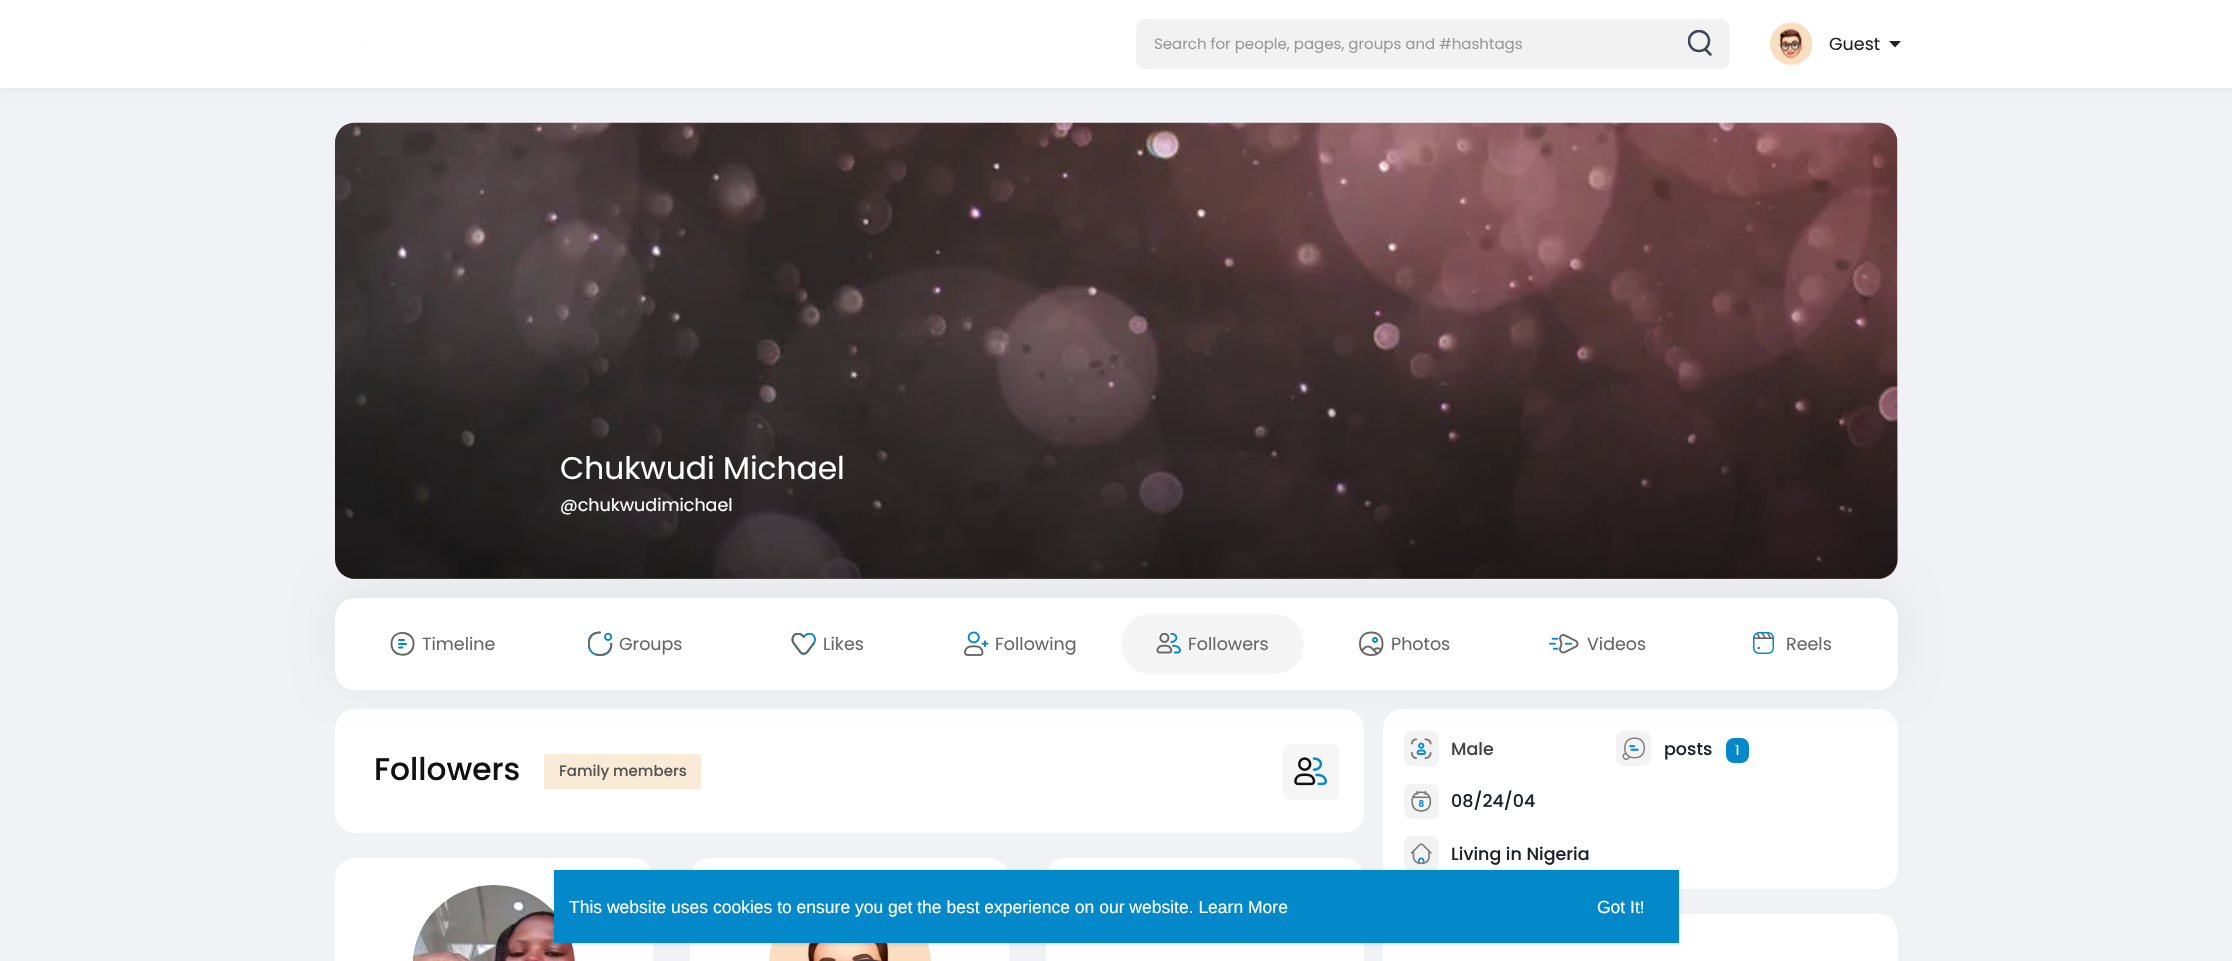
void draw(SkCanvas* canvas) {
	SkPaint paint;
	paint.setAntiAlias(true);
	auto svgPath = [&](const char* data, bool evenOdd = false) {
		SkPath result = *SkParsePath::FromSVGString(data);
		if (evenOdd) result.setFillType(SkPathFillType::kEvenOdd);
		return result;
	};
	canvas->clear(0xfff0f2f5);
	paint.setColor(0x0d000000);
	paint.setMaskFilter(SkMaskFilter::MakeBlur(kNormal_SkBlurStyle, 4));
	canvas->drawRect(SkRect::MakeXYWH(0, 1, 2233, 88), paint);
	paint.setMaskFilter(nullptr);
	paint.setColor(0xffffffff);
	canvas->drawRect(SkRect::MakeXYWH(0, 0, 2232, 88), paint);
	canvas->drawImageRect(SkImages::DeferredFromEncodedData(SkData::MakeFromFileName("img1.png")), SkRect::MakeXYWH(359, 42, 30, 2), SkSamplingOptions());
	paint.setColor(0xfff2f2f2);
	canvas->drawRoundRect(SkRect::MakeXYWH(1136, 19, 594, 50), 10, 10, paint);
	SkFont f1(fontMgr->matchFamilyStyle("Poppins", SkFontStyle::Normal()), 15);
	f1.setSubpixel(true);
	paint.setColor(0xff999999);
	canvas->drawString("Search for people, pages, groups and #hashtags", 1154, 49, f1, paint);
	canvas->save();
	canvas->clipRect(SkRect::MakeXYWH(1688, 30, 25, 26));
	paint.setStroke(true);
	paint.setStrokeWidth(2.5);
	paint.setColor(0xff3f4354);
	canvas->drawCircle(1699, 41, 10, paint);
	canvas->restore();
	paint.setStrokeCap(SkPaint::kRound_Cap);
	canvas->drawPath(svgPath("M1705.5 49.5L1710.5 54.5"), paint);
	canvas->drawImageRect(SkImages::DeferredFromEncodedData(SkData::MakeFromFileName("img2.png")), SkRect::MakeXYWH(1770, 22, 43, 44), SkSamplingOptions());
	SkFont f2(fontMgr->matchFamilyStyle("Poppins", SkFontStyle::Normal()), 17.5);
	f2.setSubpixel(true);
	paint.setStroke(false);
	paint.setColor(0xff222222);
	canvas->drawString("Guest", 1829, 50, f2, paint);
	canvas->drawPath(svgPath("M1889 41H1901L1895 47.5Z"), paint);
	paint.setColor(0xffffffff);
	canvas->drawRoundRect(SkRect::MakeXYWH(335, 123, 1563, 456), 20, 20, paint);
	canvas->drawImageRect(SkImages::DeferredFromEncodedData(SkData::MakeFromFileName("img3.png")), SkRect::MakeXYWH(335, 122, 1563, 457), SkSamplingOptions());
	{
		const SkColor colors[] = {0x00000000, 0x73000000};
		const float stops[] = {0, 1};
		const SkPoint ends[] = {{1116, 329}, {1116, 579}};
		paint.setShader(SkGradientShader::MakeLinear(ends, colors, stops, 2, SkTileMode::kClamp));
		paint.setAlpha(255);
	}
	canvas->drawRoundRect(SkRect::MakeXYWH(335, 329, 1563, 250), 20, 20, paint);
	SkFont f3(fontMgr->matchFamilyStyle("Poppins", SkFontStyle::Normal()), 31.25);
	f3.setSubpixel(true);
	paint.setShader(nullptr);
	paint.setColor(0xffffffff);
	canvas->drawString("Chukwudi Michael", 560, 479, f3, paint);
	canvas->drawString("@chukwudimichael", 560, 511, f2, paint);
	canvas->drawRoundRect(SkRect::MakeXYWH(335, 709, 1029, 124), 20, 20, paint);
	canvas->drawRoundRect(SkRect::MakeXYWH(1383, 709, 515, 180), 20, 20, paint);
	paint.setColor(0xfff3f3f3);
	canvas->drawRoundRect(SkRect::MakeXYWH(1404, 731, 35, 35), 8, 8, paint);
	canvas->drawImageRect(SkImages::DeferredFromEncodedData(SkData::MakeFromFileName("img14.png")), SkRect::MakeXYWH(1410, 738, 22, 22), SkSamplingOptions());
	canvas->drawRoundRect(SkRect::MakeXYWH(1616, 731, 35, 35), 8, 8, paint);
	canvas->drawImageRect(SkImages::DeferredFromEncodedData(SkData::MakeFromFileName("img15.png")), SkRect::MakeXYWH(1622, 737, 23, 23), SkSamplingOptions());
	paint.setColor(0xff0389c9);
	canvas->drawRoundRect(SkRect::MakeXYWH(1726, 738, 23, 25), 8, 8, paint);
	paint.setColor(0x0f000000);
	paint.setMaskFilter(SkMaskFilter::MakeBlur(kNormal_SkBlurStyle, 19));
	canvas->drawRoundRect(SkRect::MakeXYWH(335, 590, 1563, 93), 20, 20, paint);
	paint.setMaskFilter(nullptr);
	paint.setColor(0xffffffff);
	canvas->drawRoundRect(SkRect::MakeXYWH(335, 598, 1563, 92), 20, 20, paint);
	paint.setStroke(true);
	paint.setStrokeWidth(1.9);
	paint.setStrokeCap(SkPaint::kButt_Cap);
	paint.setColor(0xff666666);
	canvas->drawPath(svgPath("M392 640C395 628.5 417.5 631 413 647.5C410 659 388 657 392 640Z"), paint);
	paint.setStroke(false);
	canvas->drawString("Timeline", 422, 650, f2, paint);
	paint.setStroke(true);
	paint.setStrokeCap(SkPaint::kRound_Cap);
	paint.setColor(0xff0389c9);
	canvas->drawPath(svgPath("M399 640H404M399 647.5H402.5M399 644H406"), paint);
	canvas->drawImageRect(SkImages::DeferredFromEncodedData(SkData::MakeFromFileName("img4.png")), SkRect::MakeXYWH(588, 631, 25, 25), SkSamplingOptions());
	paint.setStroke(false);
	paint.setColor(0xff666666);
	canvas->drawString("Groups", 619, 650, f2, paint);
	canvas->drawImageRect(SkImages::DeferredFromEncodedData(SkData::MakeFromFileName("img5.png")), SkRect::MakeXYWH(791, 633, 25, 22), SkSamplingOptions());
	canvas->drawString("Likes", 823, 650, f2, paint);
	canvas->drawImageRect(SkImages::DeferredFromEncodedData(SkData::MakeFromFileName("img6.png")), SkRect::MakeXYWH(964, 631, 25, 25), SkSamplingOptions());
	canvas->drawString("Following", 995, 650, f2, paint);
	paint.setColor(0xfff5f5f5);
	canvas->drawRoundRect(SkRect::MakeXYWH(1121, 614, 183, 60), 30, 30, paint);
	canvas->drawImageRect(SkImages::DeferredFromEncodedData(SkData::MakeFromFileName("img7.png")), SkRect::MakeXYWH(1156, 633, 25, 21), SkSamplingOptions());
	paint.setColor(0xff666666);
	canvas->drawString("Followers", 1188, 650, f2, paint);
	canvas->drawImageRect(SkImages::DeferredFromEncodedData(SkData::MakeFromFileName("img8.png")), SkRect::MakeXYWH(1359, 631, 25, 25), SkSamplingOptions());
	canvas->drawString("Photos", 1391, 650, f2, paint);
	canvas->drawImageRect(SkImages::DeferredFromEncodedData(SkData::MakeFromFileName("img9.png")), SkRect::MakeXYWH(1549, 634, 30, 20), SkSamplingOptions());
	canvas->drawString("Videos", 1587, 650, f2, paint);
	canvas->drawImageRect(SkImages::DeferredFromEncodedData(SkData::MakeFromFileName("img10.png")), SkRect::MakeXYWH(1753, 632, 21, 22), SkSamplingOptions());
	canvas->drawString("Reels", 1786, 650, f2, paint);
	SkFont f4(fontMgr->matchFamilyStyle("Poppins", SkFontStyle(500, SkFontStyle::kNormal_Width, SkFontStyle::kUpright_Slant)), 31.25);
	f4.setSubpixel(true);
	paint.setColor(0xff111111);
	canvas->drawString("Followers", 374, 780, f4, paint);
	paint.setColor(0xfffaebd7);
	canvas->drawRect(SkRect::MakeXYWH(544, 754, 157, 35), paint);
	SkFont f5(fontMgr->matchFamilyStyle("Poppins", SkFontStyle(500, SkFontStyle::kNormal_Width, SkFontStyle::kUpright_Slant)), 15);
	f5.setSubpixel(true);
	paint.setColor(0xff555555);
	canvas->drawString("Family members", 559, 776, f5, paint);
	paint.setColor(0xfff6f6f6);
	canvas->drawRoundRect(SkRect::MakeXYWH(1283, 744, 56, 56), 8, 8, paint);
	canvas->drawImageRect(SkImages::DeferredFromEncodedData(SkData::MakeFromFileName("img11.png")), SkRect::MakeXYWH(1294, 757, 34, 29), SkSamplingOptions());
	paint.setColor(0xffffffff);
	canvas->drawRoundRect(SkRect::MakeXYWH(335, 858, 318, 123), 20, 20, paint);
	canvas->drawImageRect(SkImages::DeferredFromEncodedData(SkData::MakeFromFileName("img12.png")), SkRect::MakeXYWH(412, 885, 163, 76), SkSamplingOptions());
	canvas->drawRoundRect(SkRect::MakeXYWH(690, 858, 319, 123), 20, 20, paint);
	canvas->drawImageRect(SkImages::DeferredFromEncodedData(SkData::MakeFromFileName("img13.png")), SkRect::MakeXYWH(769, 943, 162, 18), SkSamplingOptions());
	canvas->drawRoundRect(SkRect::MakeXYWH(1046, 858, 318, 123), 20, 20, paint);
	SkFont f6(fontMgr->matchFamilyStyle("Poppins", SkFontStyle(500, SkFontStyle::kNormal_Width, SkFontStyle::kUpright_Slant)), 17.5);
	f6.setSubpixel(true);
	paint.setColor(0xff444444);
	canvas->drawString("Male", 1451, 755, f6, paint);
	paint.setColor(0xff1d2129);
	canvas->drawString("posts", 1664, 755, f6, paint);
	SkFont f7(fontMgr->matchFamilyStyle("Poppins", SkFontStyle::Normal()), 14);
	f7.setSubpixel(true);
	paint.setColor(0xffffffff);
	canvas->drawString("1", 1735, 755, f7, paint);
	paint.setColor(0xfff3f3f3);
	canvas->drawRoundRect(SkRect::MakeXYWH(1404, 784, 35, 35), 8, 8, paint);
	canvas->drawImageRect(SkImages::DeferredFromEncodedData(SkData::MakeFromFileName("img16.png")), SkRect::MakeXYWH(1411, 790, 21, 22), SkSamplingOptions());
	paint.setColor(0xff1d2129);
	canvas->drawString("08/24/04", 1451, 807, f6, paint);
	paint.setColor(0xfff3f3f3);
	canvas->drawRoundRect(SkRect::MakeXYWH(1404, 836, 35, 35), 8, 8, paint);
	canvas->drawImageRect(SkImages::DeferredFromEncodedData(SkData::MakeFromFileName("img17.png")), SkRect::MakeXYWH(1410, 843, 22, 22), SkSamplingOptions());
	paint.setColor(0xff1d2129);
	canvas->drawString("Living in Nigeria", 1451, 860, f6, paint);
	paint.setColor(0xffffffff);
	canvas->drawRoundRect(SkRect::MakeXYWH(1383, 914, 515, 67), 20, 20, paint);
	paint.setColor(0x0f000000);
	paint.setMaskFilter(SkMaskFilter::MakeBlur(kNormal_SkBlurStyle, 1));
	canvas->drawRect(SkRect::MakeXYWH(554, 871, 1125, 73), paint);
	paint.setMaskFilter(nullptr);
	paint.setColor(0x1a000000);
	paint.setMaskFilter(SkMaskFilter::MakeBlur(kNormal_SkBlurStyle, 2));
	canvas->drawRect(SkRect::MakeXYWH(554, 871, 1125, 73), paint);
	paint.setMaskFilter(nullptr);
	paint.setColor(0xff0389c9);
	canvas->drawRect(SkRect::MakeXYWH(554, 870, 1125, 73), paint);
	SkFont f8(fontMgr->matchFamilyStyle("Liberation Sans", SkFontStyle::Normal()), 17.5);
	f8.setSubpixel(true);
	paint.setColor(0xffffffff);
	canvas->drawString("This website uses cookies to ensure you get the best experience on our website. Learn More", 569, 913, f8, paint);
	canvas->drawString("Got It!", 1597, 913, f8, paint);
}
